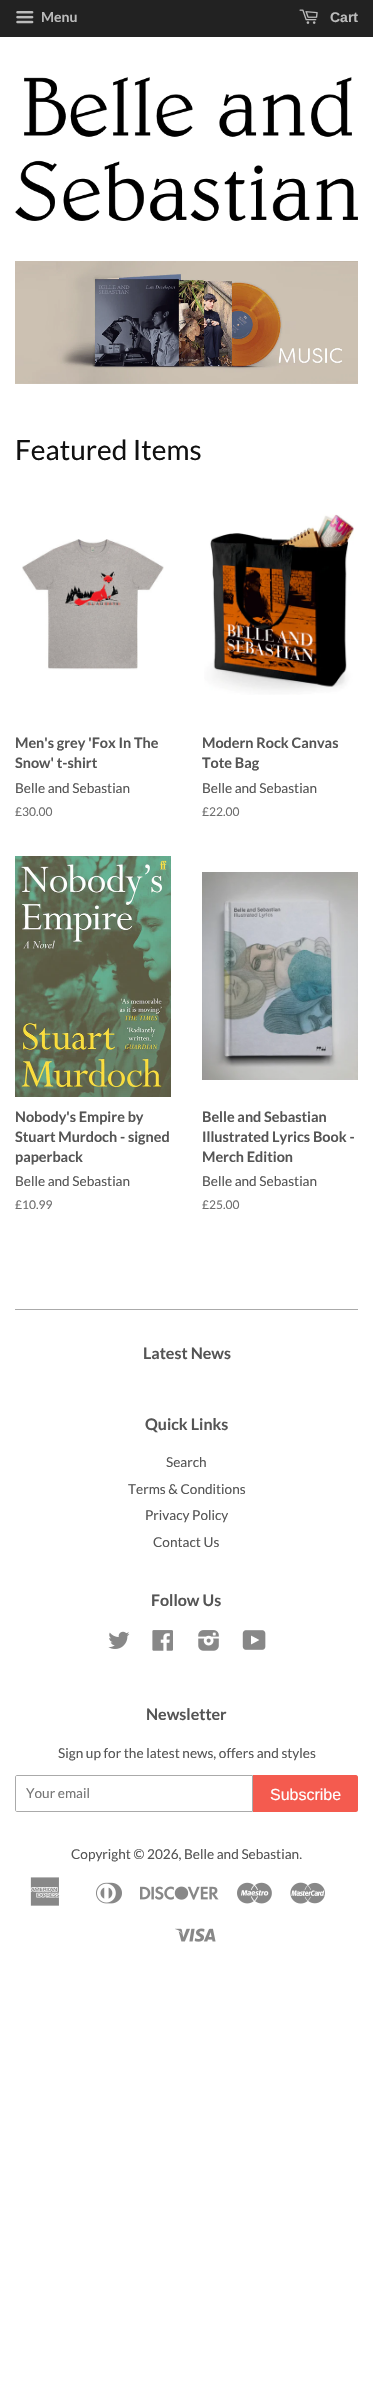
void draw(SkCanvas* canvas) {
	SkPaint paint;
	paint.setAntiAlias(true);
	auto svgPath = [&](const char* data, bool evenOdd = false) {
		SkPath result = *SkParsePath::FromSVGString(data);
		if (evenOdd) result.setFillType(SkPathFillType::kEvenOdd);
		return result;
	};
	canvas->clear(0xffffffff);
	paint.setColor(0xff222222);
	canvas->drawRect(SkRect::MakeXYWH(0, 0, 373, 37), paint);
	canvas->drawImageRect(SkImages::DeferredFromEncodedData(SkData::MakeFromFileName("img1.png")), SkRect::MakeXYWH(16, 11, 18, 13), SkSamplingOptions());
	SkFont f1(fontMgr->matchFamilyStyle("Lato", SkFontStyle::Bold()), 14);
	f1.setSubpixel(true);
	paint.setColor(0xffbbbbbb);
	canvas->drawString("Menu", 41, 22, f1, paint);
	canvas->drawImageRect(SkImages::DeferredFromEncodedData(SkData::MakeFromFileName("img2.png")), SkRect::MakeXYWH(299, 9, 19, 15), SkSamplingOptions());
	SkFont f2(fontMgr->matchFamilyStyle("Liberation Sans", SkFontStyle::Bold()), 14);
	f2.setSubpixel(true);
	canvas->drawString("Cart", 330, 22, f2, paint);
	canvas->drawImageRect(SkImages::DeferredFromEncodedData(SkData::MakeFromFileName("img3.png")), SkRect::MakeXYWH(15, 77, 343, 144), SkSamplingOptions());
	canvas->drawImageRect(SkImages::DeferredFromEncodedData(SkData::MakeFromFileName("img4.png")), SkRect::MakeXYWH(15, 261, 343, 123), SkSamplingOptions());
	SkFont f3(fontMgr->matchFamilyStyle("Lato", SkFontStyle::Normal()), 28);
	f3.setSubpixel(true);
	paint.setColor(0xff111111);
	canvas->drawString("Featured Items", 15, 460, f3, paint);
	canvas->drawImageRect(SkImages::DeferredFromEncodedData(SkData::MakeFromFileName("img5.png")), SkRect::MakeXYWH(22, 539, 142, 131), SkSamplingOptions());
	SkFont f4(fontMgr->matchFamilyStyle("Lato", SkFontStyle::Bold()), 14.4);
	f4.setSubpixel(true);
	paint.setColor(0xff555555);
	canvas->drawString("Men's grey 'Fox In The", 15, 748, f4, paint);
	canvas->drawString("Snow' t-shirt", 15, 768, f4, paint);
	SkFont f5(fontMgr->matchFamilyStyle("Lato", SkFontStyle::Normal()), 13.6);
	f5.setSubpixel(true);
	canvas->drawString("Belle and Sebastian", 15, 793, f5, paint);
	SkFont f6(fontMgr->matchFamilyStyle("Lato", SkFontStyle::Normal()), 12);
	f6.setSubpixel(true);
	paint.setColor(0xff6e6e6e);
	canvas->drawString("£30.00", 15, 816, f6, paint);
	canvas->drawImageRect(SkImages::DeferredFromEncodedData(SkData::MakeFromFileName("img6.png")), SkRect::MakeXYWH(204, 514, 150, 181), SkSamplingOptions());
	paint.setColor(0xff555555);
	canvas->drawString("Modern Rock Canvas", 202, 748, f4, paint);
	canvas->drawString("Tote Bag", 202, 768, f4, paint);
	canvas->drawString("Belle and Sebastian", 202, 793, f5, paint);
	paint.setColor(0xff6e6e6e);
	canvas->drawString("£22.00", 202, 816, f6, paint);
	canvas->drawImageRect(SkImages::DeferredFromEncodedData(SkData::MakeFromFileName("img7.png")), SkRect::MakeXYWH(15, 856, 156, 241), SkSamplingOptions());
	paint.setColor(0xff555555);
	canvas->drawString("Nobody's Empire by", 15, 1122, f4, paint);
	canvas->drawString("Stuart Murdoch - signed", 15, 1142, f4, paint);
	canvas->drawString("paperback", 15, 1162, f4, paint);
	canvas->drawString("Belle and Sebastian", 15, 1186, f5, paint);
	paint.setColor(0xff6e6e6e);
	canvas->drawString("£10.99", 15, 1209, f6, paint);
	canvas->drawImageRect(SkImages::DeferredFromEncodedData(SkData::MakeFromFileName("img8.png")), SkRect::MakeXYWH(202, 872, 156, 208), SkSamplingOptions());
	paint.setColor(0xff555555);
	canvas->drawString("Belle and Sebastian", 202, 1122, f4, paint);
	canvas->drawString("Illustrated Lyrics Book -", 202, 1142, f4, paint);
	canvas->drawString("Merch Edition", 202, 1162, f4, paint);
	canvas->drawString("Belle and Sebastian", 202, 1186, f5, paint);
	paint.setColor(0xff6e6e6e);
	canvas->drawString("£25.00", 202, 1209, f6, paint);
	paint.setColor(0xffaaaaaa);
	canvas->drawRect(SkRect::MakeXYWH(15, 1309, 343, 1), paint);
	SkFont f7(fontMgr->matchFamilyStyle("Lato", SkFontStyle::Bold()), 16);
	f7.setSubpixel(true);
	paint.setColor(0xff555555);
	canvas->drawString("Latest News", 143, 1359, f7, paint);
	canvas->drawString("Quick Links", 145, 1430, f7, paint);
	canvas->drawString("Search", 166, 1467, f5, paint);
	canvas->drawString("Terms & Conditions", 128, 1494, f5, paint);
	canvas->drawString("Privacy Policy", 145, 1520, f5, paint);
	canvas->drawString("Contact Us", 153, 1547, f5, paint);
	canvas->drawString("Follow Us", 151, 1606, f7, paint);
	canvas->drawImageRect(SkImages::DeferredFromEncodedData(SkData::MakeFromFileName("img9.png")), SkRect::MakeXYWH(108, 1631, 22, 18), SkSamplingOptions());
	canvas->drawImageRect(SkImages::DeferredFromEncodedData(SkData::MakeFromFileName("img10.png")), SkRect::MakeXYWH(152, 1630, 21, 21), SkSamplingOptions());
	canvas->drawImageRect(SkImages::DeferredFromEncodedData(SkData::MakeFromFileName("img11.png")), SkRect::MakeXYWH(198, 1630, 21, 21), SkSamplingOptions());
	canvas->drawImageRect(SkImages::DeferredFromEncodedData(SkData::MakeFromFileName("img12.png")), SkRect::MakeXYWH(242, 1630, 24, 20), SkSamplingOptions());
	canvas->drawString("Newsletter", 146, 1720, f7, paint);
	canvas->drawString("Sign up for the latest news, offers and styles", 58, 1758, f5, paint);
	paint.setStroke(true);
	paint.setStrokeWidth(1);
	paint.setColor(0xffaaaaaa);
	canvas->drawPath(svgPath("M17 1775.5H252.5V1811.5H17C16 1811.5 15.5 1811 15.5 1810V1777C15.5 1776 16 1775.5 17 1775.5Z"), paint);
	paint.setStroke(false);
	paint.setColor(0xff757575);
	canvas->drawString("Your email", 26, 1798, f5, paint);
	paint.setColor(0xfff45b4f);
	canvas->drawPath(svgPath("M253 1775H356C357 1775 358 1776 358 1777V1810C358 1811 357 1812 356 1812H253Z"), paint);
	SkFont f8(fontMgr->matchFamilyStyle("Liberation Sans", SkFontStyle::Normal()), 16);
	f8.setSubpixel(true);
	paint.setColor(0xffffffff);
	canvas->drawString("Subscribe", 270, 1800, f8, paint);
	paint.setColor(0xff555555);
	canvas->drawString("Copyright © 2026, Belle and Sebastian.", 71, 1859, f5, paint);
	canvas->drawImageRect(SkImages::DeferredFromEncodedData(SkData::MakeFromFileName("img13.png")), SkRect::MakeXYWH(30, 1877, 30, 29), SkSamplingOptions());
	canvas->drawImageRect(SkImages::DeferredFromEncodedData(SkData::MakeFromFileName("img14.png")), SkRect::MakeXYWH(96, 1882, 26, 22), SkSamplingOptions());
	canvas->drawImageRect(SkImages::DeferredFromEncodedData(SkData::MakeFromFileName("img15.png")), SkRect::MakeXYWH(140, 1886, 79, 14), SkSamplingOptions());
	canvas->drawImageRect(SkImages::DeferredFromEncodedData(SkData::MakeFromFileName("img16.png")), SkRect::MakeXYWH(237, 1882, 35, 22), SkSamplingOptions());
	canvas->drawImageRect(SkImages::DeferredFromEncodedData(SkData::MakeFromFileName("img17.png")), SkRect::MakeXYWH(290, 1882, 35, 22), SkSamplingOptions());
	canvas->drawImageRect(SkImages::DeferredFromEncodedData(SkData::MakeFromFileName("img18.png")), SkRect::MakeXYWH(175, 1928, 41, 14), SkSamplingOptions());
}
